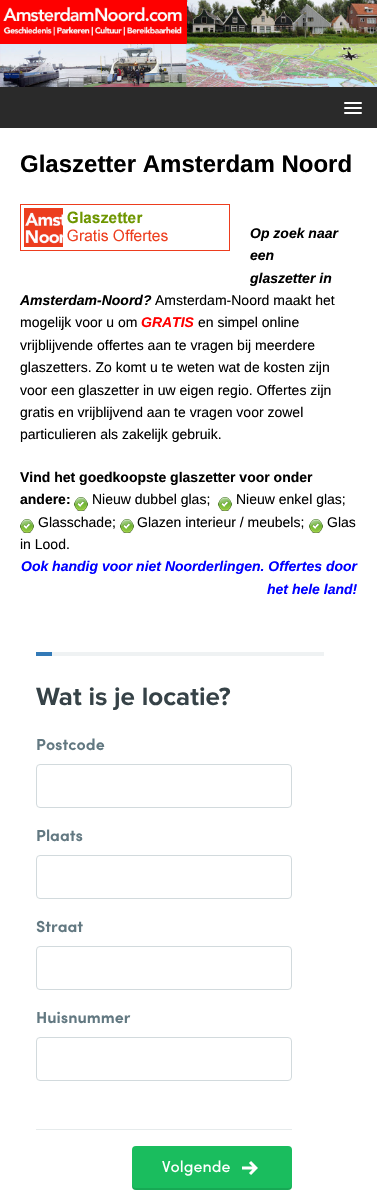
void draw(SkCanvas* canvas) {
	SkPaint paint;
	paint.setAntiAlias(true);
	canvas->clear(0xff2a2a2a);
	canvas->drawImageRect(SkImages::DeferredFromEncodedData(SkData::MakeFromFileName("img1.png")), SkRect::MakeXYWH(0, 0, 377, 87), SkSamplingOptions());
	paint.setColor(0xffffffff);
	canvas->drawRoundRect(SkRect::MakeXYWH(344, 102, 18, 2), 1, 1, paint);
	canvas->drawRoundRect(SkRect::MakeXYWH(344, 107, 18, 2), 1, 1, paint);
	canvas->drawRoundRect(SkRect::MakeXYWH(344, 112, 18, 2), 1, 1, paint);
	canvas->drawRect(SkRect::MakeXYWH(0, 128, 377, 1067), paint);
	SkFont f1(fontMgr->matchFamilyStyle("Liberation Sans", SkFontStyle::Bold()), 24);
	f1.setSubpixel(true);
	paint.setColor(0xff000000);
	canvas->drawString("Glaszetter Amsterdam Noord", 20, 172, f1, paint);
	canvas->drawImageRect(SkImages::DeferredFromEncodedData(SkData::MakeFromFileName("img2.png")), SkRect::MakeXYWH(20, 204, 210, 47), SkSamplingOptions());
	SkFont f2(fontMgr->matchFamilyStyle("Liberation Sans", SkFontStyle::BoldItalic()), 14);
	f2.setSubpixel(true);
	canvas->drawString("Op zoek naar", 250, 238, f2, paint);
	canvas->drawString("een", 250, 260, f2, paint);
	canvas->drawString("glaszetter in", 250, 283, f2, paint);
	canvas->drawString("Amsterdam-Noord?", 20, 305, f2, paint);
	SkFont f3(fontMgr->matchFamilyStyle("Liberation Sans", SkFontStyle::Normal()), 14);
	f3.setSubpixel(true);
	canvas->drawString("Amsterdam-Noord maakt het", 155, 305, f3, paint);
	canvas->drawString("mogelijk voor u om", 20, 327, f3, paint);
	paint.setColor(0xffff0000);
	canvas->drawString("GRATIS", 141, 327, f2, paint);
	paint.setColor(0xff000000);
	canvas->drawString("en simpel online", 198, 327, f3, paint);
	canvas->drawString("vrijblijvende offertes aan te vragen bij meerdere", 20, 350, f3, paint);
	canvas->drawString("glaszetters. Zo komt u te weten wat de kosten zijn", 20, 372, f3, paint);
	canvas->drawString("voor een glaszetter in uw eigen regio. Offertes zijn", 20, 395, f3, paint);
	canvas->drawString("gratis en vrijblijvend aan te vragen voor zowel", 20, 417, f3, paint);
	canvas->drawString("particulieren als zakelijk gebruik.", 20, 439, f3, paint);
	SkFont f4(fontMgr->matchFamilyStyle("Liberation Sans", SkFontStyle::Bold()), 14);
	f4.setSubpixel(true);
	canvas->drawString("Vind het goedkoopste glaszetter voor onder", 20, 482, f4, paint);
	canvas->drawString("andere:", 20, 504, f4, paint);
	canvas->drawImageRect(SkImages::DeferredFromEncodedData(SkData::MakeFromFileName("img3.png")), SkRect::MakeXYWH(74, 497, 14, 14), SkSamplingOptions());
	canvas->drawString("Nieuw dubbel glas;", 92, 504, f3, paint);
	canvas->drawImageRect(SkImages::DeferredFromEncodedData(SkData::MakeFromFileName("img3.png")), SkRect::MakeXYWH(218, 497, 14, 14), SkSamplingOptions());
	canvas->drawString("Nieuw enkel glas;", 236, 504, f3, paint);
	canvas->drawImageRect(SkImages::DeferredFromEncodedData(SkData::MakeFromFileName("img3.png")), SkRect::MakeXYWH(20, 519, 14, 14), SkSamplingOptions());
	canvas->drawString("Glasschade;", 38, 527, f3, paint);
	canvas->drawImageRect(SkImages::DeferredFromEncodedData(SkData::MakeFromFileName("img3.png")), SkRect::MakeXYWH(120, 519, 14, 14), SkSamplingOptions());
	canvas->drawString("Glazen interieur / meubels;", 137, 527, f3, paint);
	canvas->drawImageRect(SkImages::DeferredFromEncodedData(SkData::MakeFromFileName("img3.png")), SkRect::MakeXYWH(309, 519, 14, 14), SkSamplingOptions());
	canvas->drawString("Glas", 327, 527, f3, paint);
	canvas->drawString("in Lood.", 20, 549, f3, paint);
	paint.setColor(0xff0000ff);
	canvas->drawString("Ook handig voor niet Noorderlingen. Offertes door", 21, 571, f2, paint);
	canvas->drawString("het hele land!", 267, 594, f2, paint);
	canvas->drawImageRect(SkImages::DeferredFromEncodedData(SkData::MakeFromFileName("img4.png")), SkRect::MakeXYWH(36, 652, 288, 538), SkSamplingOptions());
}
